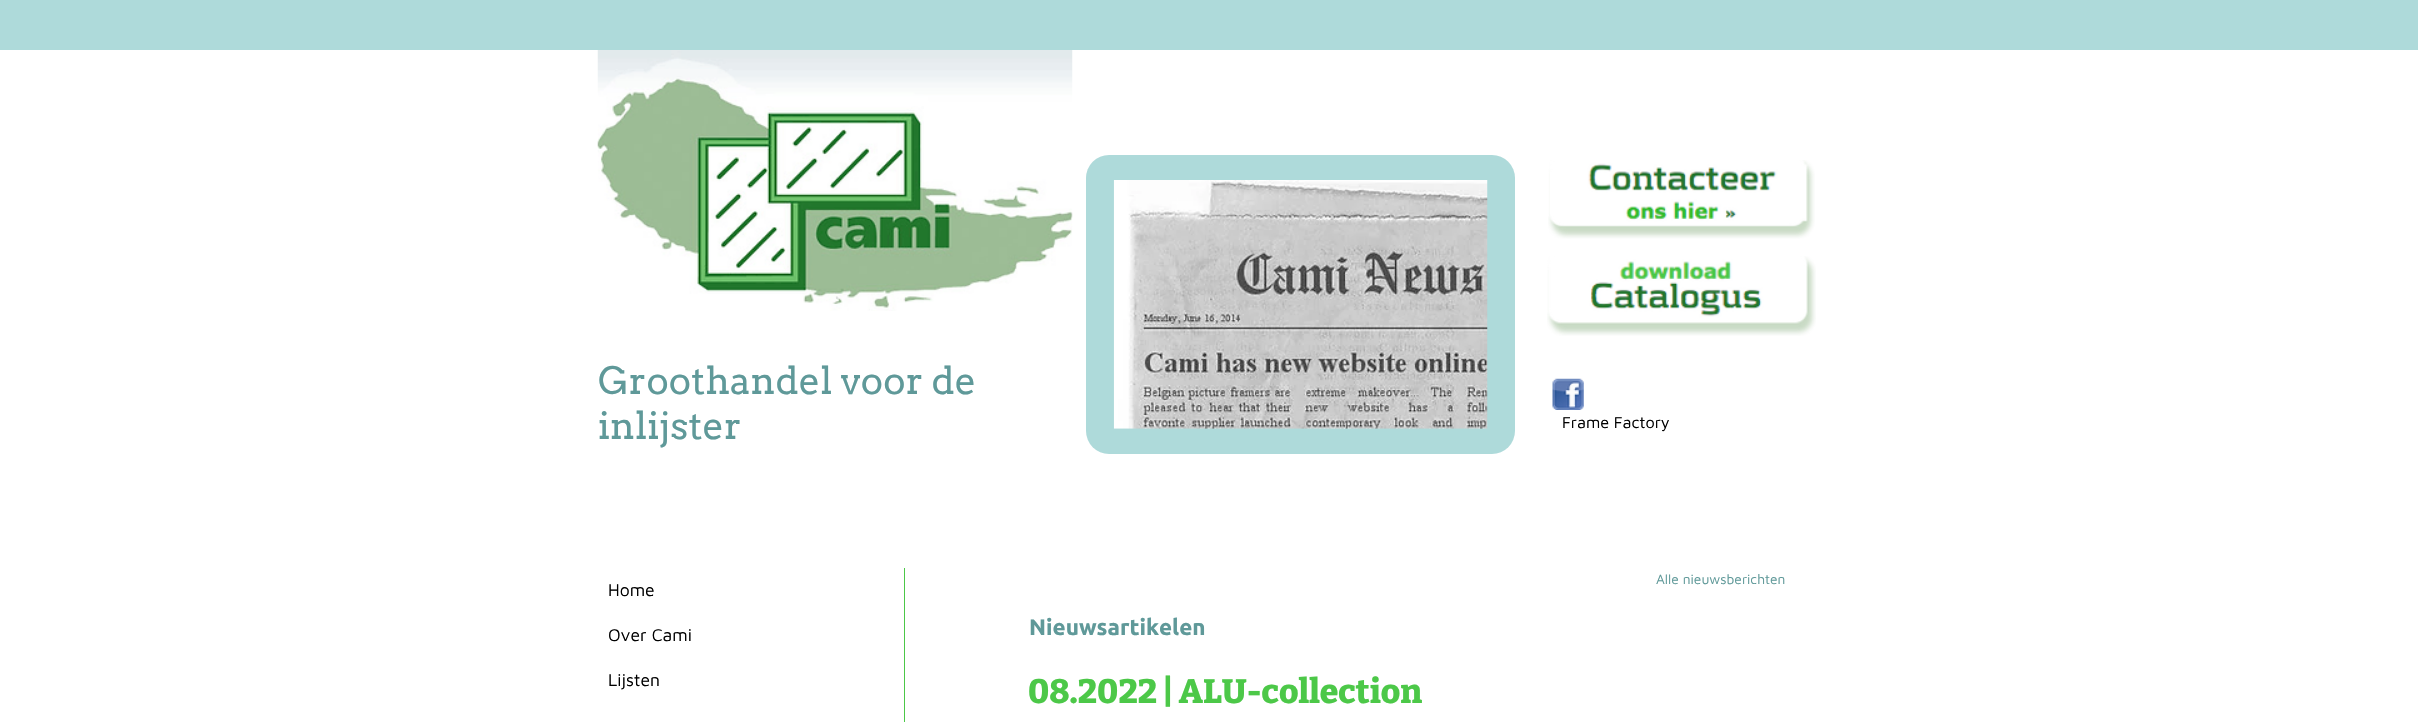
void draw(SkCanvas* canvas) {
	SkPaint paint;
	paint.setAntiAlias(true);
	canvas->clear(0xffffffff);
	paint.setColor(0xffaedada);
	canvas->drawRect(SkRect::MakeXYWH(0, 0, 2418, 50), paint);
	canvas->drawImageRect(SkImages::DeferredFromEncodedData(SkData::MakeFromFileName("img1.png")), SkRect::MakeXYWH(597, 50, 476, 261), SkSamplingOptions());
	SkFont f1(fontMgr->matchFamilyStyle("Arvo", SkFontStyle::Normal()), 37.5);
	f1.setSubpixel(true);
	paint.setColor(0xff5f9999);
	canvas->drawString("Groothandel voor de", 598, 394, f1, paint);
	canvas->drawString("inlijster", 598, 439, f1, paint);
	paint.setColor(0xffaedada);
	canvas->drawRoundRect(SkRect::MakeXYWH(1086, 155, 429, 299), 23, 23, paint);
	canvas->drawImageRect(SkImages::DeferredFromEncodedData(SkData::MakeFromFileName("img2.png")), SkRect::MakeXYWH(1113, 180, 375, 249), SkSamplingOptions());
	canvas->drawImageRect(SkImages::DeferredFromEncodedData(SkData::MakeFromFileName("img3.png")), SkRect::MakeXYWH(1548, 160, 267, 79), SkSamplingOptions());
	canvas->drawImageRect(SkImages::DeferredFromEncodedData(SkData::MakeFromFileName("img4.png")), SkRect::MakeXYWH(1547, 256, 269, 80), SkSamplingOptions());
	canvas->drawImageRect(SkImages::DeferredFromEncodedData(SkData::MakeFromFileName("img5.png")), SkRect::MakeXYWH(1552, 378, 32, 32), SkSamplingOptions());
	SkFont f2(fontMgr->matchFamilyStyle("Maven Pro", SkFontStyle::Normal()), 16.25);
	f2.setSubpixel(true);
	paint.setColor(0xff000000);
	canvas->drawString("Frame Factory", 1562, 428, f2, paint);
	paint.setColor(0xff4cc848);
	canvas->drawRect(SkRect::MakeXYWH(904, 568, 1, 154), paint);
	SkFont f3(fontMgr->matchFamilyStyle("Maven Pro", SkFontStyle::Normal()), 13.75);
	f3.setSubpixel(true);
	paint.setColor(0xff5f9999);
	canvas->drawString("Alle nieuwsberichten", 1656, 584, f3, paint);
	SkFont f4(fontMgr->matchFamilyStyle("Ubuntu", SkFontStyle::Bold()), 22.5);
	f4.setSubpixel(true);
	canvas->drawString("Nieuwsartikelen", 1029, 635, f4, paint);
	SkFont f5(fontMgr->matchFamilyStyle("Bitter", SkFontStyle(800, SkFontStyle::kNormal_Width, SkFontStyle::kUpright_Slant)), 33.75);
	f5.setSubpixel(true);
	paint.setColor(0xff4cc848);
	canvas->drawString("08.2022 | ALU-collection", 1028, 703, f5, paint);
	SkFont f6(fontMgr->matchFamilyStyle("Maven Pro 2", SkFontStyle::Normal()), 17.5);
	f6.setSubpixel(true);
	paint.setColor(0xff000000);
	canvas->drawString("Home", 608, 596, f6, paint);
	canvas->drawString("Over Cami", 608, 641, f6, paint);
	canvas->drawString("Lijsten", 608, 686, f6, paint);
}
